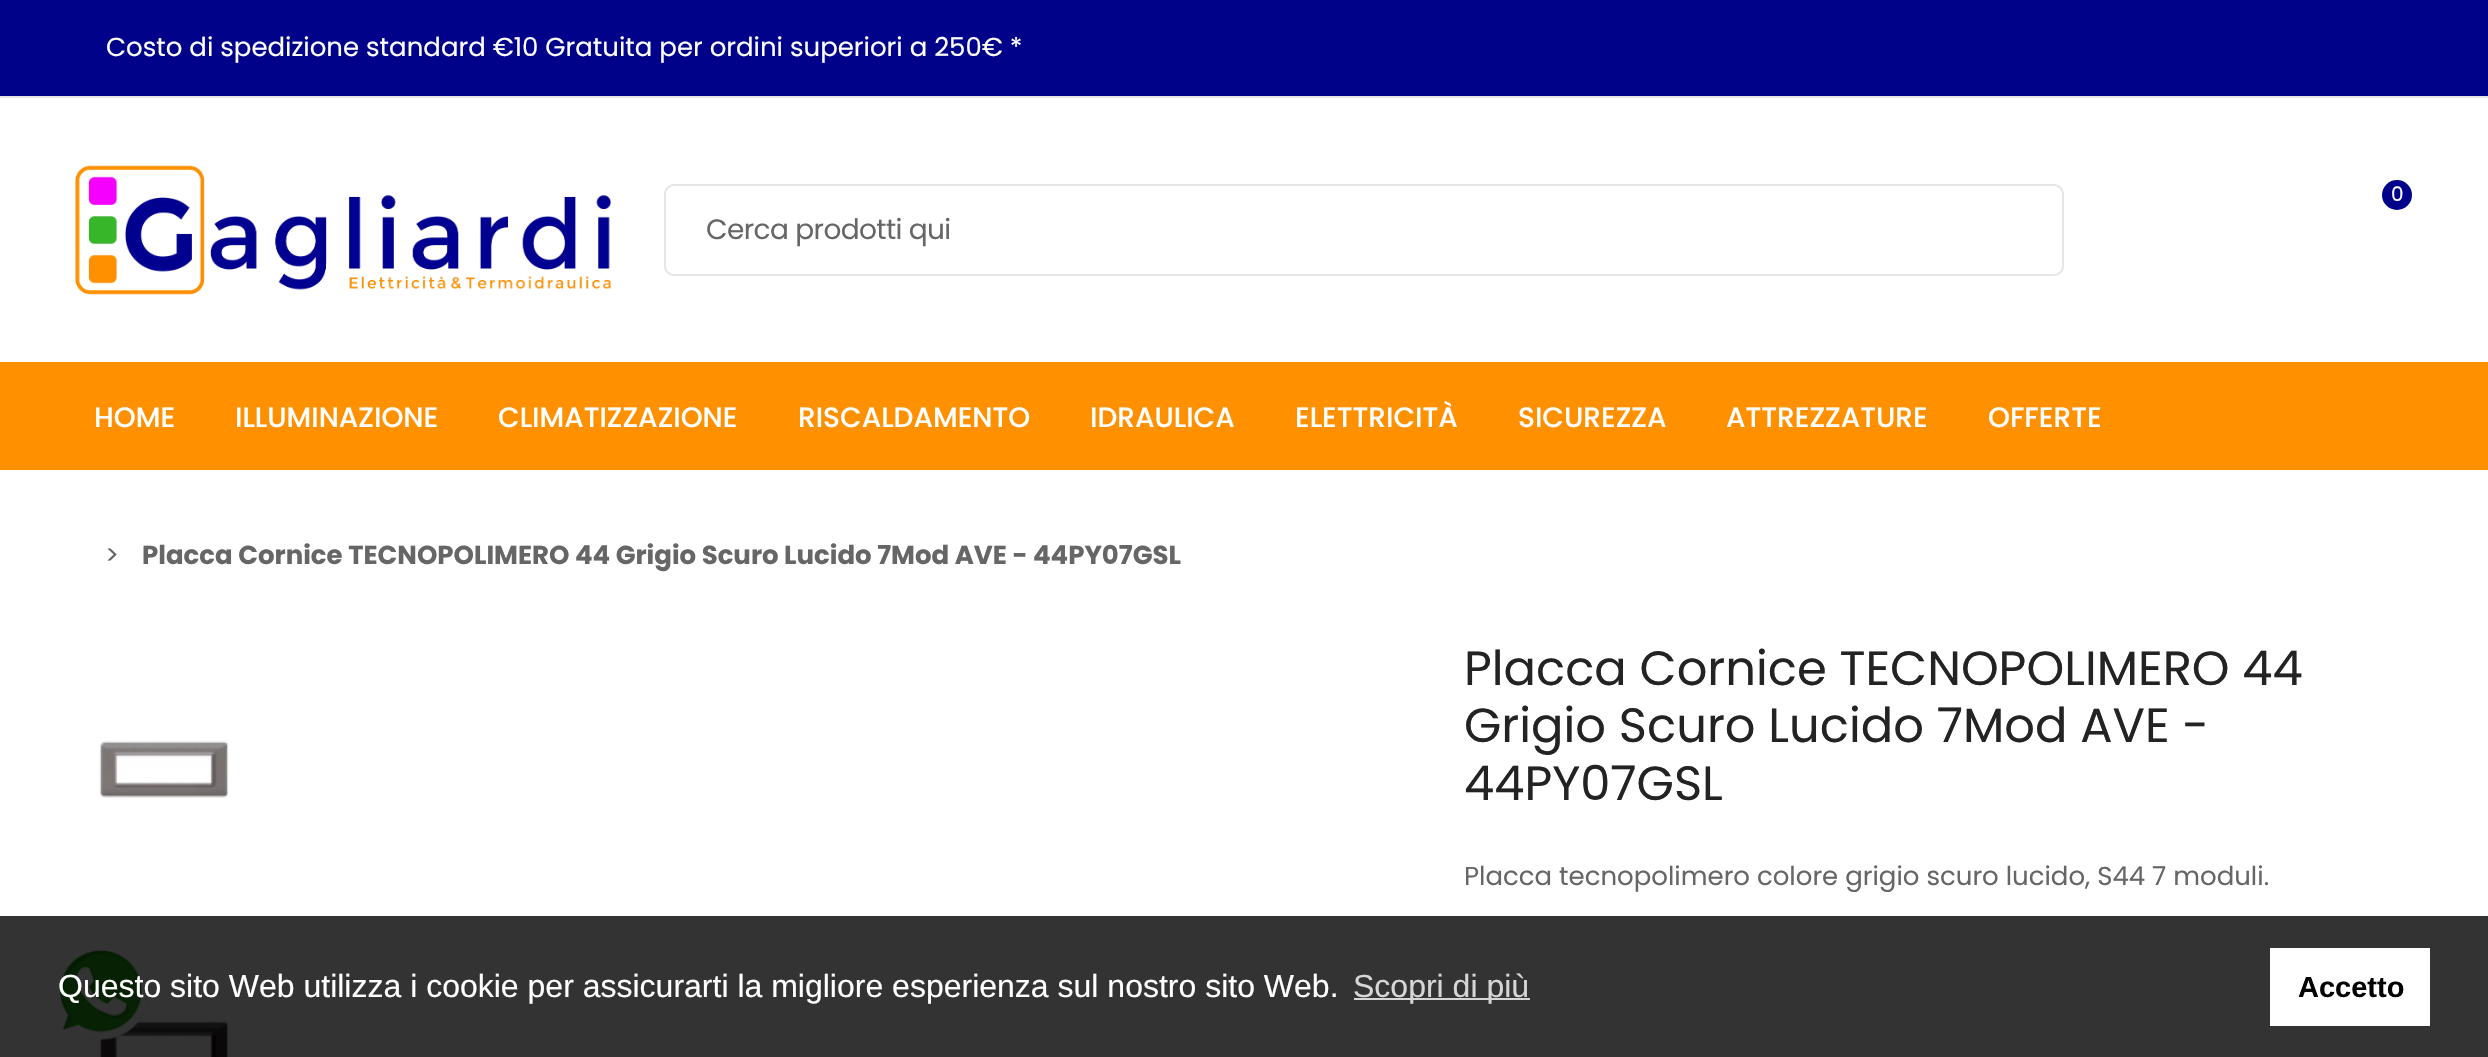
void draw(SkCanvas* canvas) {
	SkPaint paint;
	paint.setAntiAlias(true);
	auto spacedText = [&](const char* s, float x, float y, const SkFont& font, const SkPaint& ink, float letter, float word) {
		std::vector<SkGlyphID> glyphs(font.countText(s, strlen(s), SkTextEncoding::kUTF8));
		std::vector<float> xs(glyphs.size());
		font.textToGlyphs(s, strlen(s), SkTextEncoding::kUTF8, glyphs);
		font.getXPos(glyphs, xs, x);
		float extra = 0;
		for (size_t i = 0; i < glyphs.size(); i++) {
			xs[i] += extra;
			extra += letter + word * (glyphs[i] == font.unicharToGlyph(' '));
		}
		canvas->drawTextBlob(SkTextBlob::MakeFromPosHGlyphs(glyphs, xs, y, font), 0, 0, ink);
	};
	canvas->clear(0xffffffff);
	paint.setColor(0xff000289);
	canvas->drawRect(SkRect::MakeXYWH(0, 0, 2488, 96), paint);
	paint.setColor(0xffe5e5e5);
	canvas->drawRect(SkRect::MakeXYWH(0, 96, 2488, 2), paint);
	SkFont f1(fontMgr->matchFamilyStyle("Poppins", SkFontStyle::Normal()), 26);
	f1.setSubpixel(true);
	paint.setColor(0xffffffff);
	canvas->drawString("Costo di spedizione standard €10 Gratuita per ordini superiori a 250€ *", 106, 56, f1, paint);
	canvas->drawImageRect(SkImages::DeferredFromEncodedData(SkData::MakeFromFileName("img1.png")), SkRect::MakeXYWH(75, 165, 537, 130), SkSamplingOptions());
	paint.setColor(0xff000289);
	canvas->drawCircle(2397, 195, 15, paint);
	SkFont f2(fontMgr->matchFamilyStyle("Poppins", SkFontStyle::Normal()), 20);
	f2.setSubpixel(true);
	paint.setColor(0xffffffff);
	canvas->drawString("0", 2391, 201, f2, paint);
	paint.setStroke(true);
	paint.setStrokeWidth(2);
	paint.setColor(0xffe5e5e5);
	canvas->drawRoundRect(SkRect::MakeXYWH(665, 185, 1398, 90), 9, 9, paint);
	SkFont f3(fontMgr->matchFamilyStyle("Poppins", SkFontStyle::Normal()), 28);
	f3.setSubpixel(true);
	paint.setStroke(false);
	paint.setColor(0xff666666);
	spacedText("Cerca prodotti qui", 706, 239, f3, paint, -0.6, 0);
	paint.setColor(0xffff9000);
	canvas->drawRect(SkRect::MakeXYWH(0, 362, 2488, 108), paint);
	SkFont f4(fontMgr->matchFamilyStyle("Poppins", SkFontStyle(500, SkFontStyle::kNormal_Width, SkFontStyle::kUpright_Slant)), 28);
	f4.setSubpixel(true);
	paint.setColor(0xffffffff);
	canvas->drawString("HOME", 94, 427, f4, paint);
	canvas->drawString("ILLUMINAZIONE", 235, 427, f4, paint);
	canvas->drawString("CLIMATIZZAZIONE", 498, 427, f4, paint);
	canvas->drawString("RISCALDAMENTO", 798, 427, f4, paint);
	canvas->drawString("IDRAULICA", 1090, 427, f4, paint);
	canvas->drawString("ELETTRICITÀ", 1295, 427, f4, paint);
	canvas->drawString("SICUREZZA", 1518, 427, f4, paint);
	canvas->drawString("ATTREZZATURE", 1726, 427, f4, paint);
	canvas->drawString("OFFERTE", 1988, 427, f4, paint);
	paint.setColor(0xff666666);
	canvas->drawString(">", 105, 564, f1, paint);
	SkFont f5(fontMgr->matchFamilyStyle("Poppins", SkFontStyle::Bold()), 26);
	f5.setSubpixel(true);
	canvas->drawString("Placca Cornice TECNOPOLIMERO 44 Grigio Scuro Lucido 7Mod AVE - 44PY07GSL", 142, 564, f5, paint);
	canvas->drawImageRect(SkImages::DeferredFromEncodedData(SkData::MakeFromFileName("img2.png")), SkRect::MakeXYWH(99, 740, 131, 58), SkSamplingOptions());
	canvas->drawImageRect(SkImages::DeferredFromEncodedData(SkData::MakeFromFileName("img3.png")), SkRect::MakeXYWH(90, 1020, 140, 37), SkSamplingOptions());
	SkFont f6(fontMgr->matchFamilyStyle("Poppins", SkFontStyle::Normal()), 48);
	f6.setSubpixel(true);
	paint.setColor(0xff232323);
	canvas->drawString("Placca Cornice TECNOPOLIMERO 44", 1464, 685, f6, paint);
	canvas->drawString("Grigio Scuro Lucido 7Mod AVE -", 1464, 742, f6, paint);
	canvas->drawString("44PY07GSL", 1464, 800, f6, paint);
	paint.setColor(0xff666666);
	canvas->drawString("Placca tecnopolimero colore grigio scuro lucido, S44 7 moduli.", 1464, 885, f1, paint);
	canvas->drawImageRect(SkImages::DeferredFromEncodedData(SkData::MakeFromFileName("img4.png")), SkRect::MakeXYWH(50, 942, 100, 100), SkSamplingOptions());
	paint.setColor(0xcc000000);
	canvas->drawRect(SkRect::MakeXYWH(0, 916, 2488, 141), paint);
	SkFont f7(fontMgr->matchFamilyStyle("Liberation Sans", SkFontStyle::Normal()), 32);
	f7.setSubpixel(true);
	paint.setColor(0xffffffff);
	canvas->drawString("Questo sito Web utilizza i cookie per assicurarti la migliore esperienza sul nostro sito Web.", 58, 997, f7, paint);
	paint.setColor(0xffd6d6d6);
	canvas->drawRect(SkRect::MakeXYWH(1354, 998, 176, 2), paint);
	canvas->drawString("Scopri di più", 1353, 997, f7, paint);
	paint.setColor(0xffffffff);
	canvas->drawRect(SkRect::MakeXYWH(2270, 948, 160, 78), paint);
	SkFont f8(fontMgr->matchFamilyStyle("Liberation Sans", SkFontStyle::Bold()), 29);
	f8.setSubpixel(true);
	paint.setColor(0xff000000);
	canvas->drawString("Accetto", 2298, 997, f8, paint);
}
